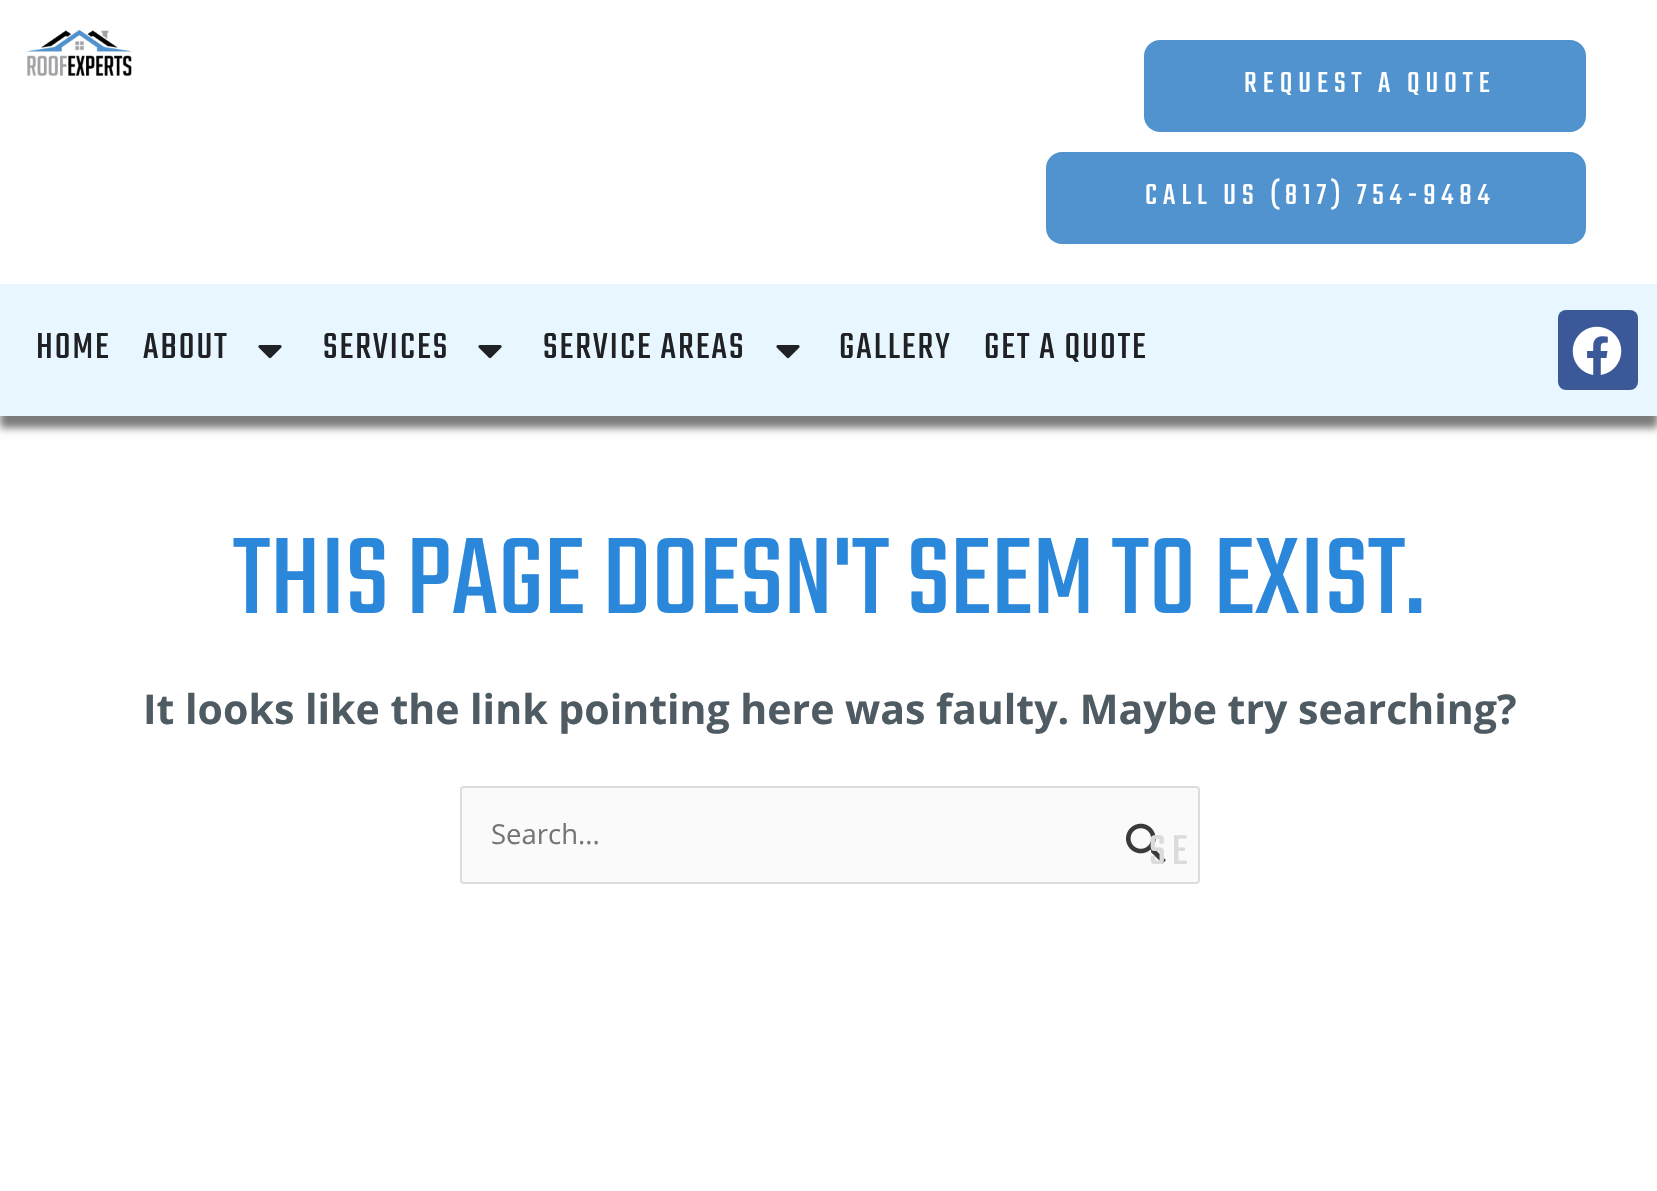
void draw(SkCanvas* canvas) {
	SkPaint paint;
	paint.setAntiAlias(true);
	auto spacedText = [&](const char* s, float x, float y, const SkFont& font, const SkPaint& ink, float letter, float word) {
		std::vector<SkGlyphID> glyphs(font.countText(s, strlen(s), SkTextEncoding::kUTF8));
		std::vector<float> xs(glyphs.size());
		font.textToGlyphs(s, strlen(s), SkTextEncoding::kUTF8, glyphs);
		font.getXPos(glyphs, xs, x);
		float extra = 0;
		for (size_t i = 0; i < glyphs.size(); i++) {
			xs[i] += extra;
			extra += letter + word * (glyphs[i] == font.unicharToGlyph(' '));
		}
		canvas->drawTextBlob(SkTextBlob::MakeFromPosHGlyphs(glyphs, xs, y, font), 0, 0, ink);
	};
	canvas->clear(0xffffffff);
	canvas->drawImageRect(SkImages::DeferredFromEncodedData(SkData::MakeFromFileName("img1.png")), SkRect::MakeXYWH(27, 29, 105, 47), SkSamplingOptions());
	paint.setColor(0xff5193cf);
	canvas->drawRoundRect(SkRect::MakeXYWH(1144, 40, 442, 92), 16, 16, paint);
	SkFont f1(fontMgr->matchFamilyStyle("Teko", SkFontStyle::Normal()), 32);
	f1.setSubpixel(true);
	paint.setColor(0xffffffff);
	spacedText("REQUEST A QUOTE", 1244, 92, f1, paint, 6, 0);
	paint.setColor(0xff5193cf);
	canvas->drawRoundRect(SkRect::MakeXYWH(1046, 152, 540, 92), 16, 16, paint);
	paint.setColor(0xffffffff);
	spacedText("CALL US (817) 754-9484", 1145, 204, f1, paint, 6, 0);
	paint.setColor(0x85000000);
	paint.setMaskFilter(SkMaskFilter::MakeBlur(kNormal_SkBlurStyle, 4));
	canvas->drawRect(SkRect::MakeXYWH(0, 296, 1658, 132), paint);
	paint.setMaskFilter(nullptr);
	paint.setColor(0xffe7f6ff);
	canvas->drawRect(SkRect::MakeXYWH(0, 284, 1657, 132), paint);
	SkFont f2(fontMgr->matchFamilyStyle("Teko", SkFontStyle::Normal()), 40);
	f2.setSubpixel(true);
	paint.setColor(0xff1f2124);
	spacedText("HOME", 36, 358, f2, paint, 2, 0);
	spacedText("ABOUT", 143, 358, f2, paint, 2, 0);
	canvas->drawImageRect(SkImages::DeferredFromEncodedData(SkData::MakeFromFileName("img2.png")), SkRect::MakeXYWH(258, 345, 24, 14), SkSamplingOptions());
	spacedText("SERVICES", 323, 358, f2, paint, 2, 0);
	canvas->drawImageRect(SkImages::DeferredFromEncodedData(SkData::MakeFromFileName("img2.png")), SkRect::MakeXYWH(478, 345, 24, 14), SkSamplingOptions());
	spacedText("SERVICE AREAS", 543, 358, f2, paint, 2, 0);
	canvas->drawImageRect(SkImages::DeferredFromEncodedData(SkData::MakeFromFileName("img2.png")), SkRect::MakeXYWH(776, 345, 24, 14), SkSamplingOptions());
	spacedText("GALLERY", 839, 358, f2, paint, 2, 0);
	spacedText("GET A QUOTE", 984, 358, f2, paint, 2, 0);
	paint.setColor(0xff3b5998);
	canvas->drawRoundRect(SkRect::MakeXYWH(1558, 310, 80, 80), 8, 8, paint);
	canvas->drawImageRect(SkImages::DeferredFromEncodedData(SkData::MakeFromFileName("img3.png")), SkRect::MakeXYWH(1572, 326, 50, 49), SkSamplingOptions());
	SkFont f3(fontMgr->matchFamilyStyle("Teko", SkFontStyle::Normal()), 120);
	f3.setSubpixel(true);
	paint.setColor(0xff2b87da);
	canvas->drawString("THIS PAGE DOESN'T SEEM TO EXIST.", 233, 613, f3, paint);
	SkFont f4(fontMgr->matchFamilyStyle("Open Sans", SkFontStyle::Bold()), 41.05);
	f4.setSubpixel(true);
	paint.setColor(0xff4f5b62);
	canvas->drawString("It looks like the link pointing here was faulty. Maybe try searching?", 143, 724, f4, paint);
	paint.setColor(0xfffafafa);
	canvas->drawRoundRect(SkRect::MakeXYWH(461, 787, 738, 96), 3, 3, paint);
	paint.setStroke(true);
	paint.setStrokeWidth(2);
	paint.setColor(0xffdddddd);
	canvas->drawRoundRect(SkRect::MakeXYWH(461, 787, 738, 96), 3, 3, paint);
	SkFont f5(fontMgr->matchFamilyStyle("Open Sans", SkFontStyle::Normal()), 27.5);
	f5.setSubpixel(true);
	paint.setStroke(false);
	paint.setColor(0xff757575);
	canvas->drawString("Search...", 491, 844, f5, paint);
	canvas->drawImageRect(SkImages::DeferredFromEncodedData(SkData::MakeFromFileName("img4.png")), SkRect::MakeXYWH(1126, 823, 40, 41), SkSamplingOptions());
	SkFont f6(fontMgr->matchFamilyStyle("Teko", SkFontStyle::Normal()), 46);
	f6.setSubpixel(true);
	paint.setColor(0xffdbdbdb);
	spacedText("SE", 1149, 864, f6, paint, 6, 0);
}
